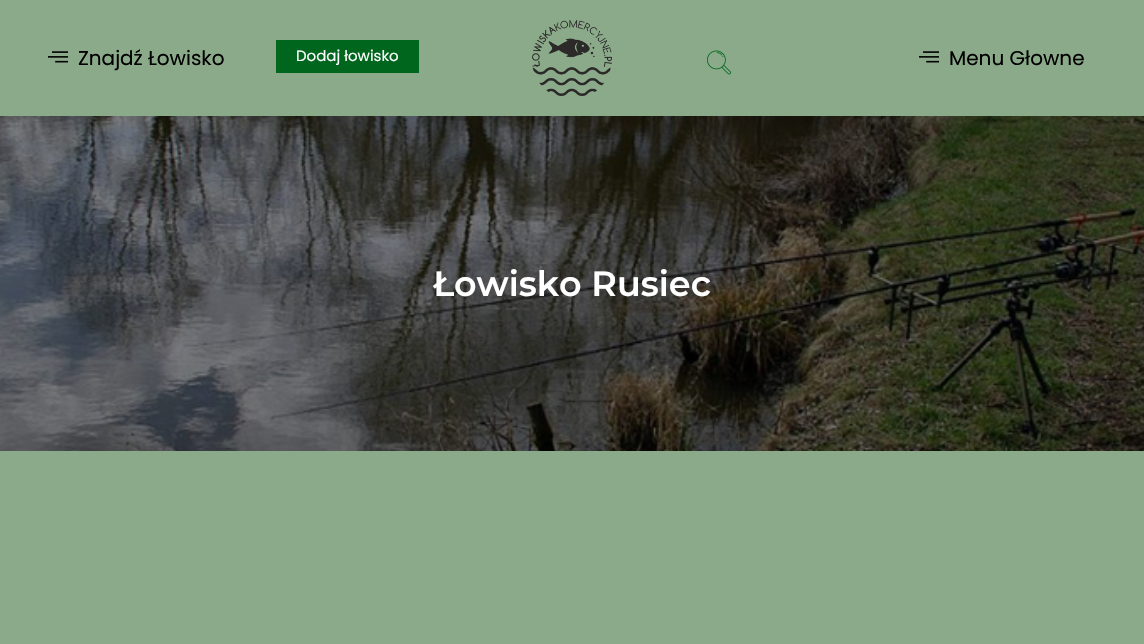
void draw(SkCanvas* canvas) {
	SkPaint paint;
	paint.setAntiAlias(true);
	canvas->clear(0xff8baa89);
	canvas->drawImageRect(SkImages::DeferredFromEncodedData(SkData::MakeFromFileName("img1.png")), SkRect::MakeXYWH(48, 51, 20, 12), SkSamplingOptions());
	SkFont f1(fontMgr->matchFamilyStyle("Poppins", SkFontStyle::Normal()), 20);
	f1.setSubpixel(true);
	paint.setColor(0xff000000);
	canvas->drawString("Znajdź Łowisko", 78, 65, f1, paint);
	paint.setColor(0xff00661d);
	canvas->drawRect(SkRect::MakeXYWH(276, 40, 143, 33), paint);
	SkFont f2(fontMgr->matchFamilyStyle("Poppins", SkFontStyle::Normal()), 15);
	f2.setSubpixel(true);
	paint.setColor(0xffffffff);
	canvas->drawString("Dodaj łowisko", 296, 61, f2, paint);
	canvas->drawImageRect(SkImages::DeferredFromEncodedData(SkData::MakeFromFileName("img2.png")), SkRect::MakeXYWH(532, 20, 80, 76), SkSamplingOptions());
	canvas->drawImageRect(SkImages::DeferredFromEncodedData(SkData::MakeFromFileName("img3.png")), SkRect::MakeXYWH(707, 50, 24, 25), SkSamplingOptions());
	canvas->drawImageRect(SkImages::DeferredFromEncodedData(SkData::MakeFromFileName("img1.png")), SkRect::MakeXYWH(919, 51, 20, 12), SkSamplingOptions());
	paint.setColor(0xff000000);
	canvas->drawString("Menu Głowne", 949, 65, f1, paint);
	canvas->drawImageRect(SkImages::DeferredFromEncodedData(SkData::MakeFromFileName("img4.png")), SkRect::MakeXYWH(0, 116, 1144, 335), SkSamplingOptions());
	SkFont f3(fontMgr->matchFamilyStyle("Montserrat", SkFontStyle(600, SkFontStyle::kNormal_Width, SkFontStyle::kUpright_Slant)), 35);
	f3.setSubpixel(true);
	paint.setColor(0xffffffff);
	canvas->drawString("Łowisko Rusiec", 433, 296, f3, paint);
}
